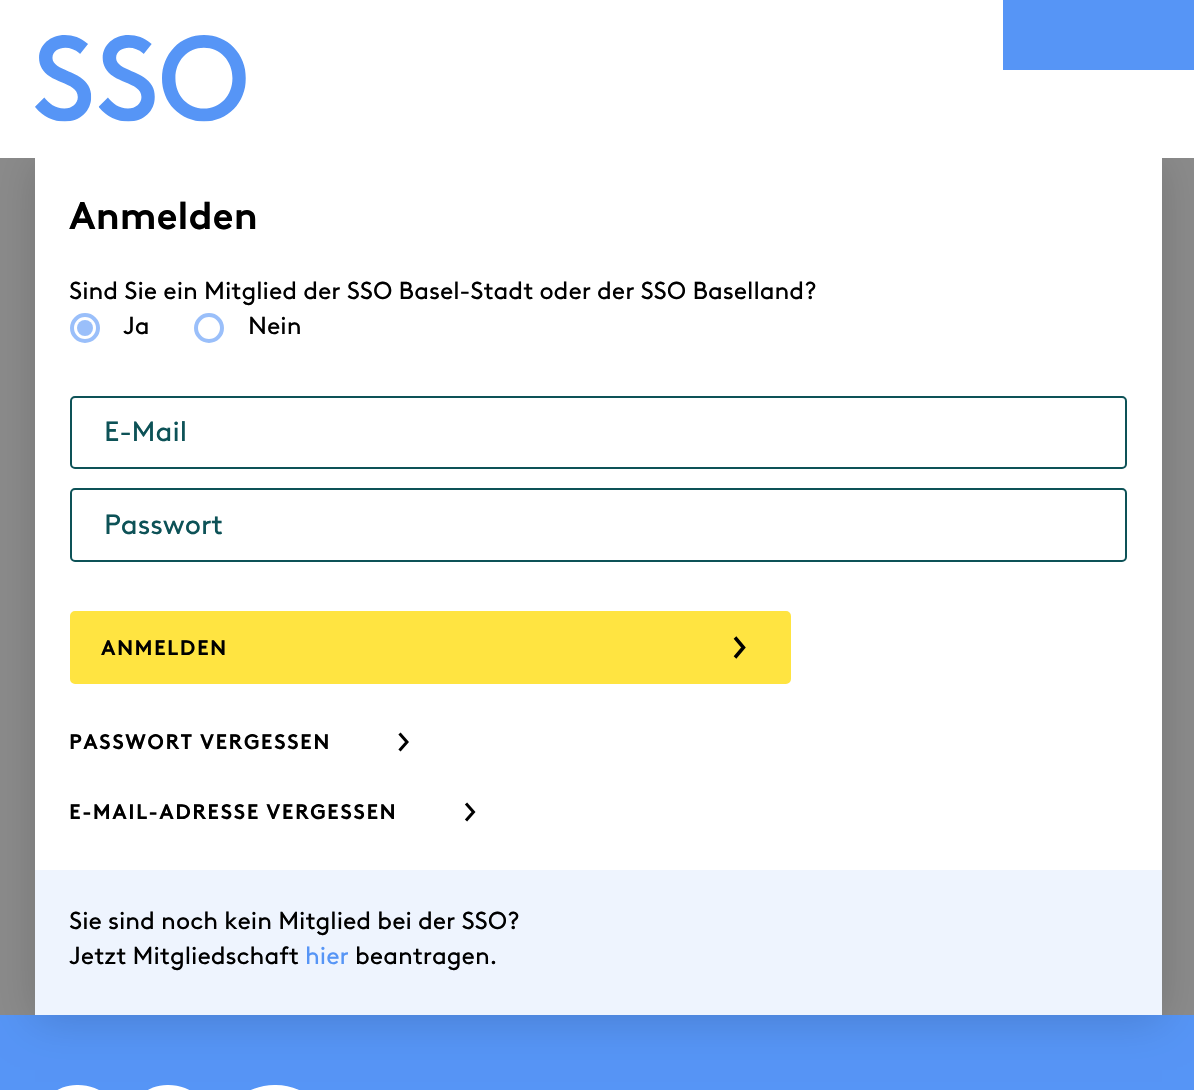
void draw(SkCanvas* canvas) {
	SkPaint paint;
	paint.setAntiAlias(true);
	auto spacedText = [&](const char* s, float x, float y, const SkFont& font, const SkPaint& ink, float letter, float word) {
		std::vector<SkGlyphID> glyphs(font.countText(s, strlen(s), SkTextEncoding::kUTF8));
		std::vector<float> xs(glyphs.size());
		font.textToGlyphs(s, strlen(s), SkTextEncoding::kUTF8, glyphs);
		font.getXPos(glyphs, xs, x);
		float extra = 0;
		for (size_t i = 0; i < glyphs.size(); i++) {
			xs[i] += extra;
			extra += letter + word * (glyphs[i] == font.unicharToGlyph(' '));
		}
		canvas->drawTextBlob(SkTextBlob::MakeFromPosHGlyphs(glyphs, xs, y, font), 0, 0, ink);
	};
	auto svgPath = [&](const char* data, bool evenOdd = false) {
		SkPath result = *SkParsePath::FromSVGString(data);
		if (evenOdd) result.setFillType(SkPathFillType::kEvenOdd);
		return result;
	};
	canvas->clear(0xff8b8b8b);
	paint.setColor(0xff5695f6);
	canvas->drawRect(SkRect::MakeXYWH(0, 1015, 1194, 75), paint);
	paint.setColor(0x29000000);
	paint.setMaskFilter(SkMaskFilter::MakeBlur(kNormal_SkBlurStyle, 21));
	canvas->drawRect(SkRect::MakeXYWH(35, 161, 1127, 858), paint);
	paint.setMaskFilter(nullptr);
	paint.setColor(0xffffffff);
	canvas->drawRect(SkRect::MakeXYWH(0, 0, 1194, 158), paint);
	canvas->drawImageRect(SkImages::DeferredFromEncodedData(SkData::MakeFromFileName("img1.png")), SkRect::MakeXYWH(35, 35, 211, 87), SkSamplingOptions());
	paint.setColor(0xff5695f6);
	canvas->drawRect(SkRect::MakeXYWH(1003, 0, 191, 70), paint);
	paint.setColor(0xffffffff);
	canvas->drawRect(SkRect::MakeXYWH(35, 158, 1127, 712), paint);
	SkFont f1(fontMgr->matchFamilyStyle("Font", SkFontStyle::Bold()), 38.5);
	f1.setSubpixel(true);
	paint.setColor(0xff000000);
	canvas->drawString("Anmelden", 69, 229, f1, paint);
	SkFont f2(fontMgr->matchFamilyStyle("Font", SkFontStyle::Normal()), 24.5);
	f2.setSubpixel(true);
	canvas->drawString("Sind Sie ein Mitglied der SSO Basel-Stadt oder der SSO Baselland?", 69, 299, f2, paint);
	paint.setStroke(true);
	paint.setStrokeWidth(4);
	paint.setColor(0xff9abffa);
	canvas->drawCircle(85, 328, 13, paint);
	paint.setStroke(false);
	paint.setColor(0xff000000);
	canvas->drawString("Ja", 123, 334, f2, paint);
	paint.setColor(0xff9abffa);
	canvas->drawCircle(85, 328, 8, paint);
	paint.setStroke(true);
	canvas->drawCircle(209, 328, 13, paint);
	paint.setStroke(false);
	paint.setColor(0xff000000);
	canvas->drawString("Nein", 248, 334, f2, paint);
	paint.setStroke(true);
	paint.setStrokeWidth(2);
	paint.setColor(0xff0d5257);
	canvas->drawRoundRect(SkRect::MakeXYWH(71, 397, 1055, 71), 4, 4, paint);
	SkFont f3(fontMgr->matchFamilyStyle("Font", SkFontStyle::Normal()), 28);
	f3.setSubpixel(true);
	paint.setStroke(false);
	canvas->drawString("E-Mail", 104, 441, f3, paint);
	paint.setStroke(true);
	canvas->drawRoundRect(SkRect::MakeXYWH(71, 489, 1055, 72), 4, 4, paint);
	paint.setStroke(false);
	canvas->drawString("Passwort", 104, 534, f3, paint);
	paint.setColor(0xffffe441);
	canvas->drawRoundRect(SkRect::MakeXYWH(71, 612, 719, 71), 4, 4, paint);
	paint.setStroke(true);
	canvas->drawRoundRect(SkRect::MakeXYWH(71, 612, 719, 71), 4, 4, paint);
	SkFont f4(fontMgr->matchFamilyStyle("Font", SkFontStyle::Bold()), 21);
	f4.setSubpixel(true);
	paint.setStroke(false);
	paint.setColor(0xff000000);
	spacedText("ANMELDEN", 101, 655, f4, paint, 1.4, 0);
	paint.setStroke(true);
	paint.setStrokeWidth(3.5);
	canvas->drawPath(svgPath("M735 637.5L743.5 647.5L735 657.5"), paint);
	paint.setStroke(false);
	spacedText("PASSWORT VERGESSEN", 69, 749, f4, paint, 1.4, 0);
	paint.setStroke(true);
	paint.setStrokeWidth(3);
	canvas->drawPath(svgPath("M399.5 733.5L407 742L399.5 750.5"), paint);
	paint.setStroke(false);
	spacedText("E-MAIL-ADRESSE VERGESSEN", 69, 819, f4, paint, 1.4, 0);
	paint.setStroke(true);
	canvas->drawPath(svgPath("M466 803.5L473.5 812L466 820.5"), paint);
	paint.setStroke(false);
	paint.setColor(0xffeef4fe);
	canvas->drawRect(SkRect::MakeXYWH(35, 870, 1127, 145), paint);
	paint.setColor(0xff000000);
	canvas->drawString("Sie sind noch kein Mitglied bei der SSO?", 69, 929, f2, paint);
	canvas->drawString("Jetzt Mitgliedschaft", 69, 964, f2, paint);
	paint.setColor(0xff5695f6);
	canvas->drawString("hier", 305, 964, f2, paint);
	paint.setColor(0xff000000);
	canvas->drawString("beantragen.", 355, 964, f2, paint);
	canvas->drawImageRect(SkImages::DeferredFromEncodedData(SkData::MakeFromFileName("img2.png")), SkRect::MakeXYWH(57, 1085, 242, 5), SkSamplingOptions());
}
